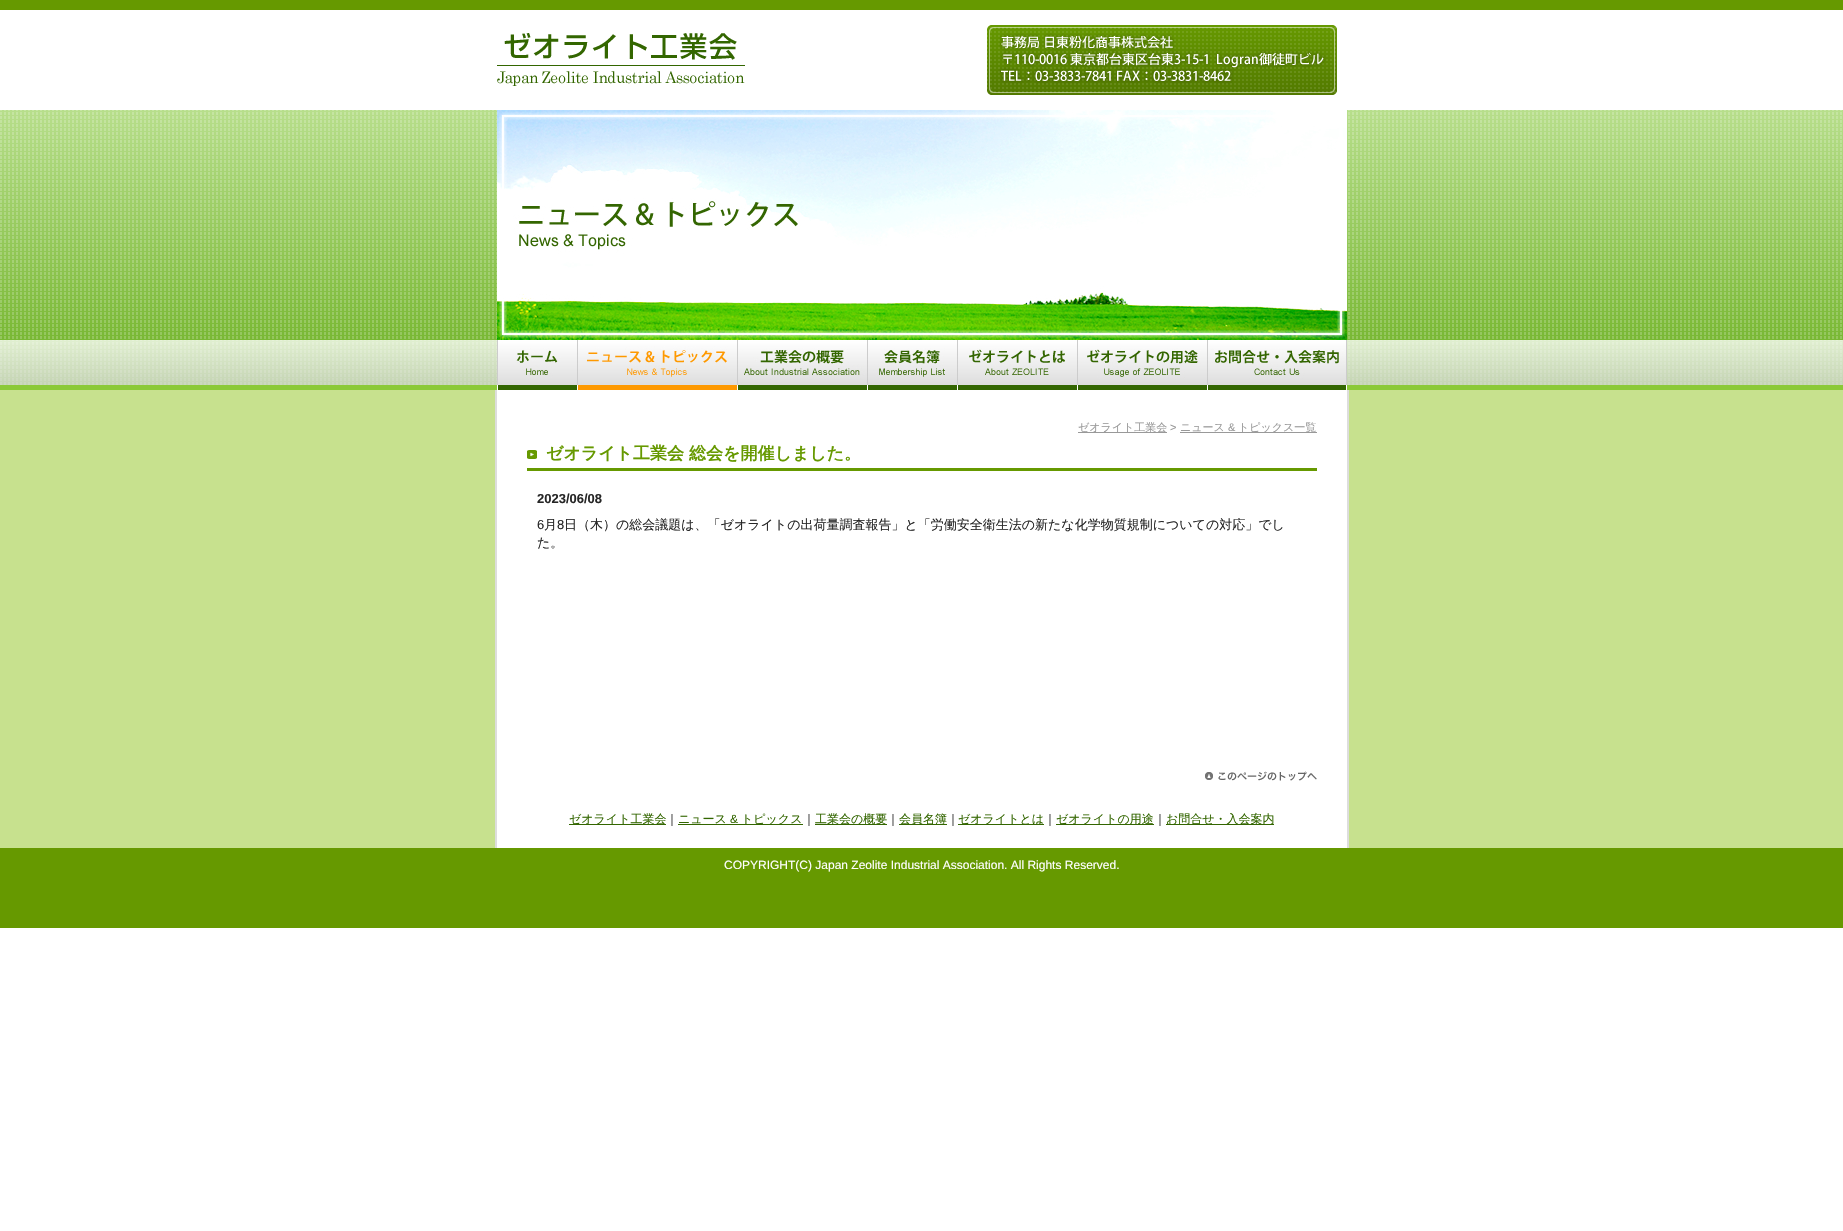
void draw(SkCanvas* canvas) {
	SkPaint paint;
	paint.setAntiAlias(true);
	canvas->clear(0xffffffff);
	paint.setColor(0xff669900);
	canvas->drawRect(SkRect::MakeXYWH(0, 0, 1843, 10), paint);
	canvas->drawImageRect(SkImages::DeferredFromEncodedData(SkData::MakeFromFileName("img1.png")), SkRect::MakeXYWH(497, 33, 248, 53), SkSamplingOptions());
	canvas->drawImageRect(SkImages::DeferredFromEncodedData(SkData::MakeFromFileName("img2.png")), SkRect::MakeXYWH(987, 25, 350, 70), SkSamplingOptions());
	canvas->drawImageRect(SkImages::DeferredFromEncodedData(SkData::MakeFromFileName("img3.png")), SkRect::MakeXYWH(0, 110, 1843, 230), SkSamplingOptions());
	canvas->drawImageRect(SkImages::DeferredFromEncodedData(SkData::MakeFromFileName("img4.png")), SkRect::MakeXYWH(497, 110, 850, 230), SkSamplingOptions());
	canvas->drawImageRect(SkImages::DeferredFromEncodedData(SkData::MakeFromFileName("img5.png")), SkRect::MakeXYWH(0, 340, 1843, 50), SkSamplingOptions());
	canvas->drawImageRect(SkImages::DeferredFromEncodedData(SkData::MakeFromFileName("img6.png")), SkRect::MakeXYWH(497, 340, 80, 50), SkSamplingOptions());
	canvas->drawImageRect(SkImages::DeferredFromEncodedData(SkData::MakeFromFileName("img7.png")), SkRect::MakeXYWH(577, 340, 160, 50), SkSamplingOptions());
	canvas->drawImageRect(SkImages::DeferredFromEncodedData(SkData::MakeFromFileName("img8.png")), SkRect::MakeXYWH(737, 340, 130, 50), SkSamplingOptions());
	canvas->drawImageRect(SkImages::DeferredFromEncodedData(SkData::MakeFromFileName("img9.png")), SkRect::MakeXYWH(867, 340, 90, 50), SkSamplingOptions());
	canvas->drawImageRect(SkImages::DeferredFromEncodedData(SkData::MakeFromFileName("img10.png")), SkRect::MakeXYWH(957, 340, 120, 50), SkSamplingOptions());
	canvas->drawImageRect(SkImages::DeferredFromEncodedData(SkData::MakeFromFileName("img11.png")), SkRect::MakeXYWH(1077, 340, 130, 50), SkSamplingOptions());
	canvas->drawImageRect(SkImages::DeferredFromEncodedData(SkData::MakeFromFileName("img12.png")), SkRect::MakeXYWH(1207, 340, 140, 50), SkSamplingOptions());
	paint.setColor(0xffc7e18e);
	canvas->drawRect(SkRect::MakeXYWH(0, 390, 1843, 458), paint);
	paint.setColor(0xffffffff);
	canvas->drawRect(SkRect::MakeXYWH(497, 390, 850, 458), paint);
	paint.setColor(0xffdddddd);
	canvas->drawRect(SkRect::MakeXYWH(1347, 390, 2, 458), paint);
	canvas->drawRect(SkRect::MakeXYWH(495, 390, 2, 458), paint);
	paint.setColor(0xff999999);
	canvas->drawRect(SkRect::MakeXYWH(1078, 432, 89, 1), paint);
	SkFont f1(fontMgr->matchFamilyStyle("WenQuanYi Zen Hei", SkFontStyle(500, SkFontStyle::kNormal_Width, SkFontStyle::kUpright_Slant)), 11);
	f1.setSubpixel(true);
	canvas->drawString("ゼオライト工業会", 1078, 431, f1, paint);
	SkFont f2(fontMgr->matchFamilyStyle("Liberation Sans", SkFontStyle::Normal()), 11);
	f2.setSubpixel(true);
	canvas->drawString(">", 1170, 431, f2, paint);
	canvas->drawString("ニュース", 1180, 431, f1, paint);
	canvas->drawRect(SkRect::MakeXYWH(1180, 432, 137, 1), paint);
	canvas->drawString("&", 1228, 431, f2, paint);
	canvas->drawString("トピックス一覧", 1238, 431, f1, paint);
	canvas->drawImageRect(SkImages::DeferredFromEncodedData(SkData::MakeFromFileName("img13.png")), SkRect::MakeXYWH(527, 450, 10, 9), SkSamplingOptions());
	paint.setColor(0xff669900);
	canvas->drawRect(SkRect::MakeXYWH(527, 468, 790, 3), paint);
	SkFont f3(fontMgr->matchFamilyStyle("WenQuanYi Zen Hei", SkFontStyle::Bold()), 17);
	f3.setSubpixel(true);
	canvas->drawString("ゼオライト工業会 総会を開催しました。", 546, 459, f3, paint);
	SkFont f4(fontMgr->matchFamilyStyle("Liberation Sans", SkFontStyle::Bold()), 13);
	f4.setSubpixel(true);
	paint.setColor(0xff262626);
	canvas->drawString("2023/06/08", 537, 503, f4, paint);
	SkFont f5(fontMgr->matchFamilyStyle("Liberation Sans", SkFontStyle::Normal()), 13);
	f5.setSubpixel(true);
	canvas->drawString("6", 537, 529, f5, paint);
	SkFont f6(fontMgr->matchFamilyStyle("WenQuanYi Zen Hei", SkFontStyle(500, SkFontStyle::kNormal_Width, SkFontStyle::kUpright_Slant)), 13);
	f6.setSubpixel(true);
	canvas->drawString("月", 544, 529, f6, paint);
	canvas->drawString("8", 557, 529, f5, paint);
	canvas->drawString("日（木）の総会議題は、「ゼオライトの出荷量調査報告」と「労働安全衛生法の新たな化学物質規制についての対応」でし", 564, 529, f6, paint);
	canvas->drawString("た。", 537, 547, f6, paint);
	canvas->drawImageRect(SkImages::DeferredFromEncodedData(SkData::MakeFromFileName("img14.png")), SkRect::MakeXYWH(1205, 771, 112, 10), SkSamplingOptions());
	paint.setColor(0xff336600);
	canvas->drawRect(SkRect::MakeXYWH(569, 824, 97, 1), paint);
	SkFont f7(fontMgr->matchFamilyStyle("WenQuanYi Zen Hei", SkFontStyle(500, SkFontStyle::kNormal_Width, SkFontStyle::kUpright_Slant)), 12);
	f7.setSubpixel(true);
	canvas->drawString("ゼオライト工業会", 569, 823, f7, paint);
	paint.setColor(0xff262626);
	canvas->drawString("｜", 666, 823, f7, paint);
	paint.setColor(0xff336600);
	canvas->drawString("ニュース", 678, 823, f7, paint);
	canvas->drawRect(SkRect::MakeXYWH(678, 824, 125, 1), paint);
	SkFont f8(fontMgr->matchFamilyStyle("Liberation Sans", SkFontStyle::Normal()), 12);
	f8.setSubpixel(true);
	canvas->drawString("&", 730, 823, f8, paint);
	canvas->drawString("トピックス", 741, 823, f7, paint);
	paint.setColor(0xff262626);
	canvas->drawString("｜", 803, 823, f7, paint);
	paint.setColor(0xff336600);
	canvas->drawRect(SkRect::MakeXYWH(815, 824, 72, 1), paint);
	canvas->drawString("工業会の概要", 815, 823, f7, paint);
	paint.setColor(0xff262626);
	canvas->drawString("｜", 887, 823, f7, paint);
	paint.setColor(0xff336600);
	canvas->drawRect(SkRect::MakeXYWH(899, 824, 48, 1), paint);
	canvas->drawString("会員名簿", 899, 823, f7, paint);
	paint.setColor(0xff262626);
	canvas->drawString("｜", 947, 823, f7, paint);
	paint.setColor(0xff336600);
	canvas->drawRect(SkRect::MakeXYWH(958, 824, 86, 1), paint);
	canvas->drawString("ゼオライトとは", 958, 823, f7, paint);
	paint.setColor(0xff262626);
	canvas->drawString("｜", 1044, 823, f7, paint);
	paint.setColor(0xff336600);
	canvas->drawRect(SkRect::MakeXYWH(1056, 824, 98, 1), paint);
	canvas->drawString("ゼオライトの用途", 1056, 823, f7, paint);
	paint.setColor(0xff262626);
	canvas->drawString("｜", 1154, 823, f7, paint);
	paint.setColor(0xff336600);
	canvas->drawRect(SkRect::MakeXYWH(1166, 824, 108, 1), paint);
	canvas->drawString("お問合せ・入会案内", 1166, 823, f7, paint);
	paint.setColor(0xff669900);
	canvas->drawRect(SkRect::MakeXYWH(0, 848, 1843, 80), paint);
	paint.setColor(0xffffffff);
	canvas->drawString("COPYRIGHT(C) Japan Zeolite Industrial Association. All Rights Reserved.", 724, 869, f8, paint);
}
